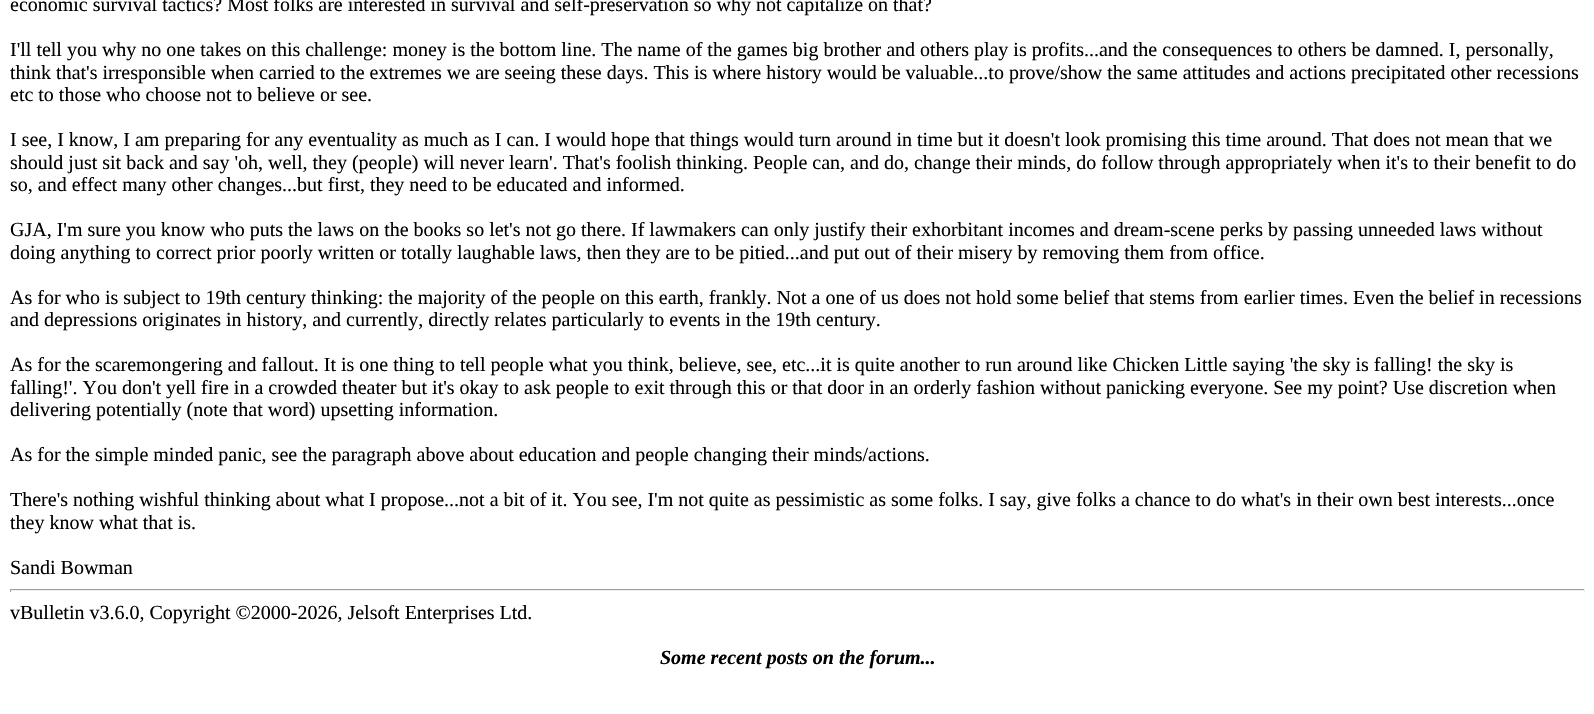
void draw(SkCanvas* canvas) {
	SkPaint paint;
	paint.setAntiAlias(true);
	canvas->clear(0xffffffff);
	SkFont f1(fontMgr->matchFamilyStyle("Liberation Serif", SkFontStyle::Normal()), 20);
	f1.setSubpixel(true);
	paint.setColor(0xff000000);
	canvas->drawString("economic survival tactics? Most folks are interested in survival and self-preservation so why not capitalize on that?", 10, 11, f1, paint);
	canvas->drawString("I'll tell you why no one takes on this challenge: money is the bottom line. The name of the games big brother and others play is profits...and the consequences to others be damned. I, personally,", 10, 56, f1, paint);
	canvas->drawString("think that's irresponsible when carried to the extremes we are seeing these days. This is where history would be valuable...to prove/show the same attitudes and actions precipitated other recessions", 10, 79, f1, paint);
	canvas->drawString("etc to those who choose not to believe or see.", 10, 101, f1, paint);
	canvas->drawString("I see, I know, I am preparing for any eventuality as much as I can. I would hope that things would turn around in time but it doesn't look promising this time around. That does not mean that we", 10, 146, f1, paint);
	canvas->drawString("should just sit back and say 'oh, well, they (people) will never learn'. That's foolish thinking. People can, and do, change their minds, do follow through appropriately when it's to their benefit to do", 10, 169, f1, paint);
	canvas->drawString("so, and effect many other changes...but first, they need to be educated and informed.", 10, 191, f1, paint);
	canvas->drawString("GJA, I'm sure you know who puts the laws on the books so let's not go there. If lawmakers can only justify their exhorbitant incomes and dream-scene perks by passing unneeded laws without", 10, 236, f1, paint);
	canvas->drawString("doing anything to correct prior poorly written or totally laughable laws, then they are to be pitied...and put out of their misery by removing them from office.", 10, 259, f1, paint);
	canvas->drawString("As for who is subject to 19th century thinking: the majority of the people on this earth, frankly. Not a one of us does not hold some belief that stems from earlier times. Even the belief in recessions", 10, 304, f1, paint);
	canvas->drawString("and depressions originates in history, and currently, directly relates particularly to events in the 19th century.", 10, 326, f1, paint);
	canvas->drawString("As for the scaremongering and fallout. It is one thing to tell people what you think, believe, see, etc...it is quite another to run around like Chicken Little saying 'the sky is falling! the sky is", 10, 371, f1, paint);
	canvas->drawString("falling!'. You don't yell fire in a crowded theater but it's okay to ask people to exit through this or that door in an orderly fashion without panicking everyone. See my point? Use discretion when", 10, 394, f1, paint);
	canvas->drawString("delivering potentially (note that word) upsetting information.", 10, 416, f1, paint);
	canvas->drawString("As for the simple minded panic, see the paragraph above about education and people changing their minds/actions.", 10, 461, f1, paint);
	canvas->drawString("There's nothing wishful thinking about what I propose...not a bit of it. You see, I'm not quite as pessimistic as some folks. I say, give folks a chance to do what's in their own best interests...once", 10, 506, f1, paint);
	canvas->drawString("they know what that is.", 10, 529, f1, paint);
	canvas->drawString("Sandi Bowman", 10, 574, f1, paint);
	paint.setColor(0xff9f9f9f);
	canvas->drawRect(SkRect::MakeXYWH(10, 589, 1575, 1), paint);
	paint.setColor(0xffeeeeee);
	canvas->drawRect(SkRect::MakeXYWH(1584, 589, 1, 3), paint);
	canvas->drawRect(SkRect::MakeXYWH(10, 590, 1575, 1), paint);
	paint.setColor(0xff9f9f9f);
	canvas->drawRect(SkRect::MakeXYWH(10, 589, 1, 3), paint);
	paint.setColor(0xff000000);
	canvas->drawString("vBulletin v3.6.0, Copyright ©2000-2026, Jelsoft Enterprises Ltd.", 10, 619, f1, paint);
	SkFont f2(fontMgr->matchFamilyStyle("Liberation Serif", SkFontStyle::BoldItalic()), 20);
	f2.setSubpixel(true);
	canvas->drawString("Some recent posts on the forum...", 660, 664, f2, paint);
}
